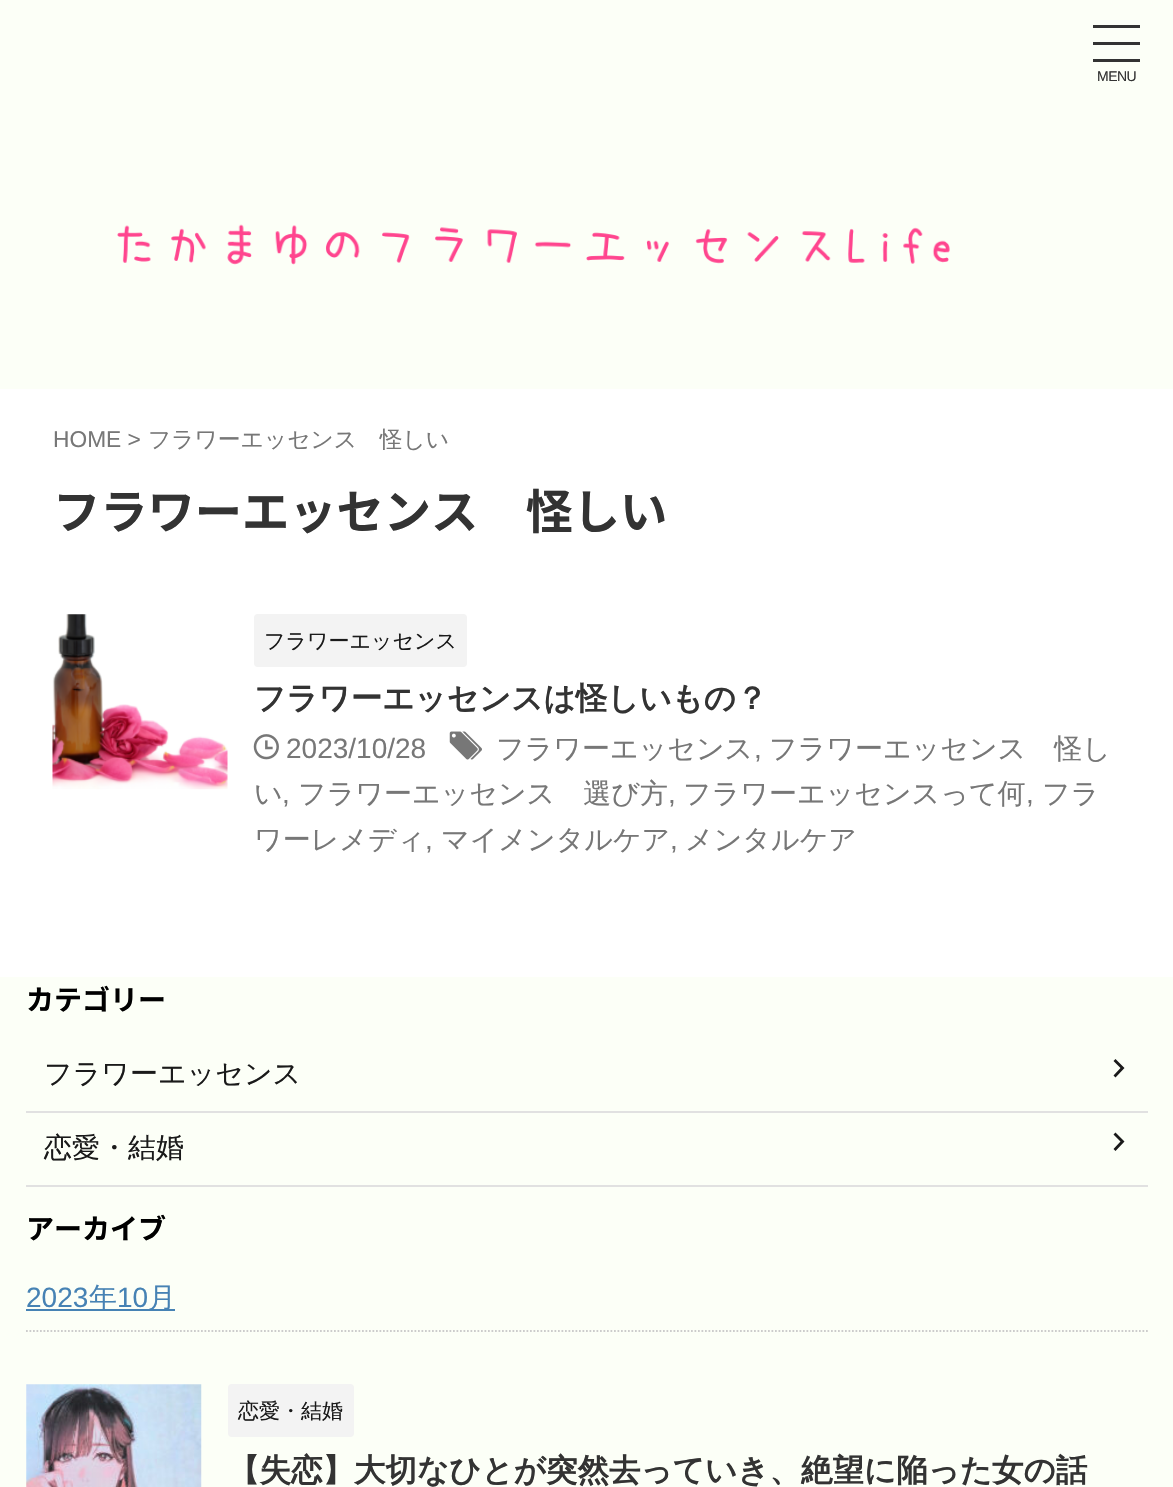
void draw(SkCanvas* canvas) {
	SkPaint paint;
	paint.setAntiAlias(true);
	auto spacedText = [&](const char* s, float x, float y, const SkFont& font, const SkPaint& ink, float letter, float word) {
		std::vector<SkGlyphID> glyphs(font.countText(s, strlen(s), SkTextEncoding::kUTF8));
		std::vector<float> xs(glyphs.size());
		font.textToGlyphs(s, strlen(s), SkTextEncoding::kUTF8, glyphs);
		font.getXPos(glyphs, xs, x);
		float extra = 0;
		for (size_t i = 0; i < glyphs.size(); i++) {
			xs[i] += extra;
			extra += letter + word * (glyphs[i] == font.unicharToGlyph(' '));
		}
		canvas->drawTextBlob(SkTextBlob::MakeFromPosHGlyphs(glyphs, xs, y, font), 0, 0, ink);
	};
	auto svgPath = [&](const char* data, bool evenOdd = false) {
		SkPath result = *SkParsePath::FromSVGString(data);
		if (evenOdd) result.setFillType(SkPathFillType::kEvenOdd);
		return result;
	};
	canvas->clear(0xfffcfff7);
	paint.setColor(0xff333333);
	canvas->drawPath(svgPath("M1093 25H1140V28H1093ZM1093 42H1140V45H1093ZM1093 59H1140V62H1093Z"), paint);
	SkFont f1(fontMgr->matchFamilyStyle("Liberation Sans", SkFontStyle::Normal()), 14);
	f1.setSubpixel(true);
	spacedText("MENU", 1097, 81, f1, paint, -0.5, 0);
	canvas->drawImageRect(SkImages::DeferredFromEncodedData(SkData::MakeFromFileName("img1.png")), SkRect::MakeXYWH(117, 224, 833, 41), SkSamplingOptions());
	paint.setColor(0xffffffff);
	canvas->drawRect(SkRect::MakeXYWH(0, 389, 1173, 588), paint);
	SkFont f2(fontMgr->matchFamilyStyle("Liberation Sans", SkFontStyle::Normal()), 22.75);
	f2.setSubpixel(true);
	paint.setColor(0xff777777);
	canvas->drawString("HOME >", 53, 447, f2, paint);
	SkFont f3(fontMgr->matchFamilyStyle("WenQuanYi Zen Hei", SkFontStyle(500, SkFontStyle::kNormal_Width, SkFontStyle::kUpright_Slant)), 22.75);
	f3.setSubpixel(true);
	canvas->drawString("フラワーエッセンス　怪しい", 148, 447, f3, paint);
	SkFont f4(fontMgr->matchFamilyStyle("Noto Sans JP", SkFontStyle::Bold()), 47.25);
	f4.setSubpixel(true);
	paint.setColor(0xff333333);
	canvas->drawString("フラワーエッセンス　怪しい", 53, 529, f4, paint);
	canvas->drawImageRect(SkImages::DeferredFromEncodedData(SkData::MakeFromFileName("img2.png")), SkRect::MakeXYWH(52, 614, 176, 176), SkSamplingOptions());
	paint.setColor(0xfff3f3f3);
	canvas->drawRoundRect(SkRect::MakeXYWH(254, 614, 213, 53), 4, 4, paint);
	SkFont f5(fontMgr->matchFamilyStyle("WenQuanYi Zen Hei", SkFontStyle(500, SkFontStyle::kNormal_Width, SkFontStyle::kUpright_Slant)), 21);
	f5.setSubpixel(true);
	paint.setColor(0xff1a1a1a);
	canvas->drawString("フラワーエッセンス", 264, 648, f5, paint);
	SkFont f6(fontMgr->matchFamilyStyle("WenQuanYi Zen Hei", SkFontStyle::Bold()), 31.5);
	f6.setSubpixel(true);
	paint.setColor(0xff333333);
	canvas->drawString("フラワーエッセンスは怪しいもの？", 254, 709, f6, paint);
	canvas->drawImageRect(SkImages::DeferredFromEncodedData(SkData::MakeFromFileName("img3.png")), SkRect::MakeXYWH(253, 734, 26, 26), SkSamplingOptions());
	SkFont f7(fontMgr->matchFamilyStyle("Liberation Sans", SkFontStyle::Normal()), 28);
	f7.setSubpixel(true);
	paint.setColor(0xff777777);
	canvas->drawString("2023/10/28", 286, 758, f7, paint);
	canvas->drawImageRect(SkImages::DeferredFromEncodedData(SkData::MakeFromFileName("img4.png")), SkRect::MakeXYWH(449, 731, 33, 29), SkSamplingOptions());
	SkFont f8(fontMgr->matchFamilyStyle("WenQuanYi Zen Hei", SkFontStyle(500, SkFontStyle::kNormal_Width, SkFontStyle::kUpright_Slant)), 28);
	f8.setSubpixel(true);
	canvas->drawString("フラワーエッセンス", 496, 758, f8, paint);
	canvas->drawString(",", 754, 758, f7, paint);
	canvas->drawString("フラワーエッセンス　怪し", 769, 758, f8, paint);
	canvas->drawString("い", 254, 803, f8, paint);
	canvas->drawString(",", 282, 803, f7, paint);
	canvas->drawString("フラワーエッセンス　選び方", 298, 803, f8, paint);
	canvas->drawString(",", 668, 803, f7, paint);
	canvas->drawString("フラワーエッセンスって何", 683, 803, f8, paint);
	canvas->drawString(",", 1026, 803, f7, paint);
	canvas->drawString("フラ", 1042, 803, f8, paint);
	canvas->drawString("ワーレメディ", 254, 849, f8, paint);
	canvas->drawString(",", 425, 849, f7, paint);
	canvas->drawString("マイメンタルケア", 441, 849, f8, paint);
	canvas->drawString(",", 670, 849, f7, paint);
	canvas->drawString("メンタルケア", 685, 849, f8, paint);
	SkFont f9(fontMgr->matchFamilyStyle("Noto Sans JP", SkFontStyle::Bold()), 28);
	f9.setSubpixel(true);
	paint.setColor(0xff000000);
	canvas->drawString("カテゴリー", 26, 1010, f9, paint);
	paint.setColor(0xffe1e1e1);
	canvas->drawRect(SkRect::MakeXYWH(26, 1111, 1122, 2), paint);
	paint.setColor(0xff1a1a1a);
	canvas->drawString("フラワーエッセンス", 44, 1083, f8, paint);
	canvas->drawPath(svgPath("M1120.5 1068L1113.5 1061L1115.5 1059L1124.5 1068L1115.5 1077.5L1113.5 1075.5Z"), paint);
	paint.setColor(0xffe1e1e1);
	canvas->drawRect(SkRect::MakeXYWH(26, 1185, 1122, 2), paint);
	paint.setColor(0xff1a1a1a);
	canvas->drawString("恋愛・結婚", 44, 1157, f8, paint);
	canvas->drawPath(svgPath("M1120.5 1141.5L1113.5 1134.5L1115.5 1132.5L1124.5 1141.5L1115.5 1151L1113.5 1149Z"), paint);
	paint.setColor(0xff000000);
	canvas->drawString("アーカイブ", 26, 1239, f9, paint);
	paint.setStroke(true);
	paint.setStrokeWidth(1.8);
	paint.setColor(0xffcccccc);
	paint.setPathEffect(SkDashPathEffect::Make({{1.75f, 1.75f}}, 0));
	canvas->drawPath(svgPath("M26 1331H1148"), paint);
	paint.setPathEffect(nullptr);
	paint.setStroke(false);
	paint.setColor(0xff4682b4);
	canvas->drawString("2023", 26, 1307, f7, paint);
	canvas->drawRect(SkRect::MakeXYWH(26, 1309, 149, 2), paint);
	canvas->drawString("年", 89, 1307, f8, paint);
	canvas->drawString("10", 117, 1307, f7, paint);
	canvas->drawString("月", 148, 1307, f8, paint);
	canvas->drawImageRect(SkImages::DeferredFromEncodedData(SkData::MakeFromFileName("img5.png")), SkRect::MakeXYWH(26, 1384, 176, 103), SkSamplingOptions());
	paint.setColor(0xfff3f3f3);
	canvas->drawRoundRect(SkRect::MakeXYWH(228, 1384, 126, 53), 4, 4, paint);
	paint.setColor(0xff1a1a1a);
	canvas->drawString("恋愛・結婚", 238, 1418, f5, paint);
	paint.setColor(0xff333333);
	canvas->drawString("【失恋】大切なひとが突然去っていき、絶望に陥った女の話", 228, 1481, f6, paint);
}
